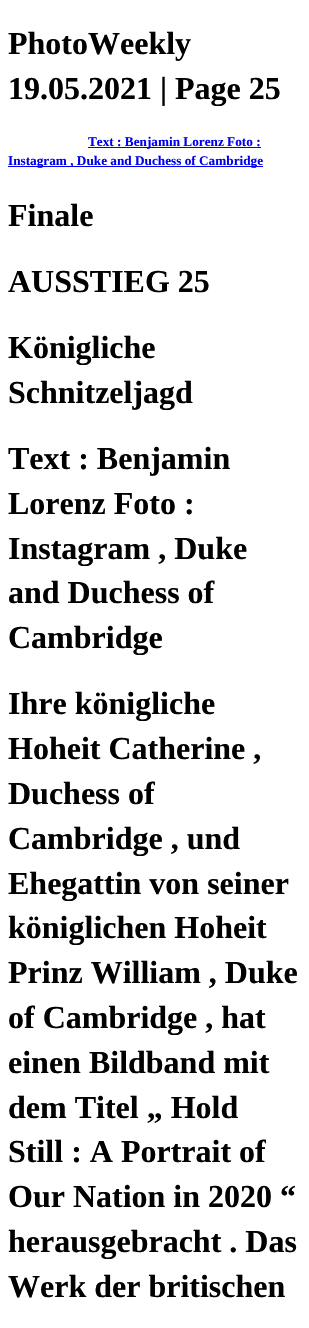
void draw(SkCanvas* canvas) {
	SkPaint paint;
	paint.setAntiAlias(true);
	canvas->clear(0xffffffff);
	SkFont f1(fontMgr->matchFamilyStyle("Liberation Serif", SkFontStyle::Bold()), 32);
	f1.setSubpixel(true);
	paint.setColor(0xff000000);
	canvas->drawString("PhotoWeekly", 8, 54, f1, paint);
	canvas->drawString("19.05.2021 | Page 25", 8, 99, f1, paint);
	paint.setColor(0xff0000ee);
	canvas->drawRect(SkRect::MakeXYWH(88, 147, 173, 1), paint);
	SkFont f2(fontMgr->matchFamilyStyle("Liberation Serif", SkFontStyle::Bold()), 13.25);
	f2.setSubpixel(true);
	canvas->drawString("Text : Benjamin Lorenz Foto :", 88, 146, f2, paint);
	canvas->drawRect(SkRect::MakeXYWH(8, 166, 255, 1), paint);
	canvas->drawString("Instagram , Duke and Duchess of Cambridge", 8, 165, f2, paint);
	paint.setColor(0xff000000);
	canvas->drawString("Finale", 8, 226, f1, paint);
	canvas->drawString("AUSSTIEG 25", 8, 292, f1, paint);
	canvas->drawString("Königliche", 8, 358, f1, paint);
	canvas->drawString("Schnitzeljagd", 8, 403, f1, paint);
	canvas->drawString("Text : Benjamin", 8, 469, f1, paint);
	canvas->drawString("Lorenz Foto :", 8, 514, f1, paint);
	canvas->drawString("Instagram , Duke", 8, 559, f1, paint);
	canvas->drawString("and Duchess of", 8, 603, f1, paint);
	canvas->drawString("Cambridge", 8, 648, f1, paint);
	canvas->drawString("Ihre königliche", 8, 714, f1, paint);
	canvas->drawString("Hoheit Catherine ,", 8, 759, f1, paint);
	canvas->drawString("Duchess of", 8, 804, f1, paint);
	canvas->drawString("Cambridge , und", 8, 849, f1, paint);
	canvas->drawString("Ehegattin von seiner", 8, 894, f1, paint);
	canvas->drawString("königlichen Hoheit", 8, 938, f1, paint);
	canvas->drawString("Prinz William , Duke", 8, 983, f1, paint);
	canvas->drawString("of Cambridge , hat", 8, 1028, f1, paint);
	canvas->drawString("einen Bildband mit", 8, 1073, f1, paint);
	canvas->drawString("dem Titel „ Hold", 8, 1118, f1, paint);
	canvas->drawString("Still : A Portrait of", 8, 1162, f1, paint);
	canvas->drawString("Our Nation in 2020 “", 8, 1207, f1, paint);
	canvas->drawString("herausgebracht . Das", 8, 1252, f1, paint);
	canvas->drawString("Werk der britischen", 8, 1297, f1, paint);
}
